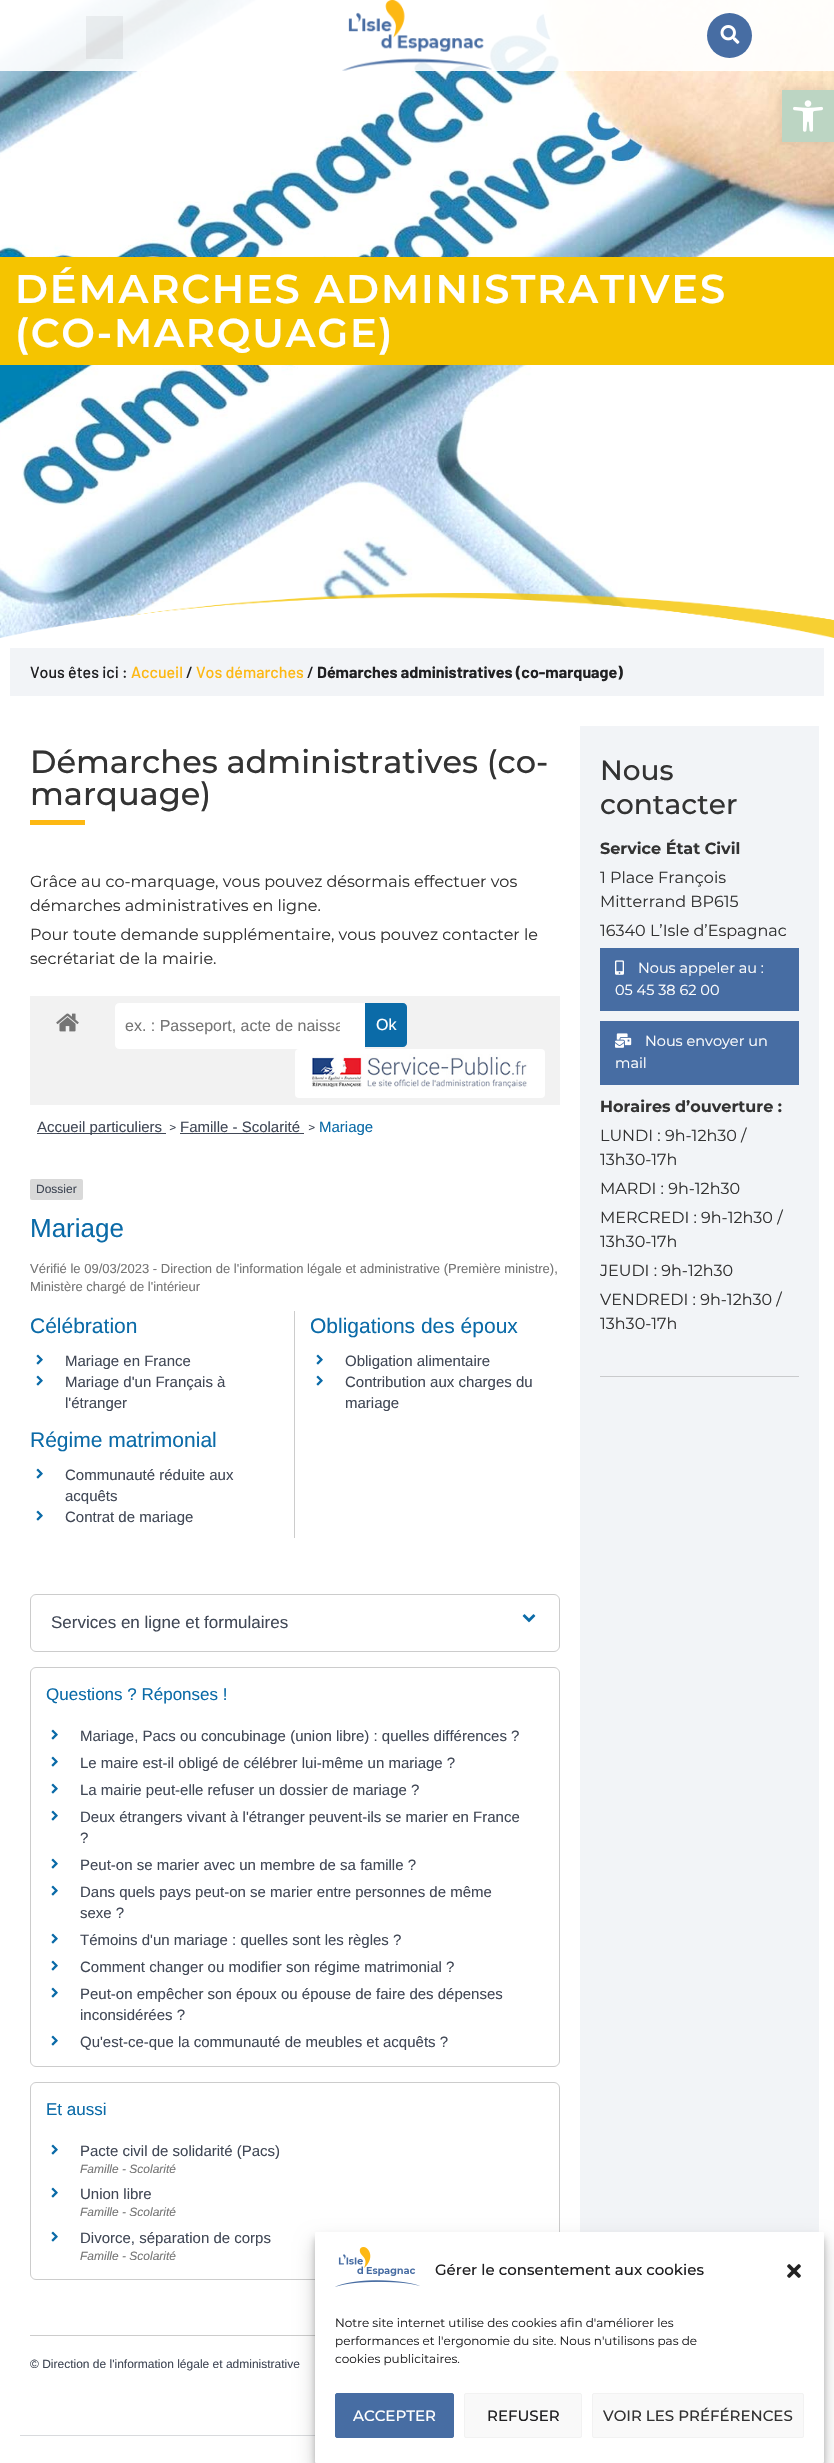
void draw(SkCanvas* canvas) {
	SkPaint paint;
	paint.setAntiAlias(true);
	auto spacedText = [&](const char* s, float x, float y, const SkFont& font, const SkPaint& ink, float letter, float word) {
		std::vector<SkGlyphID> glyphs(font.countText(s, strlen(s), SkTextEncoding::kUTF8));
		std::vector<float> xs(glyphs.size());
		font.textToGlyphs(s, strlen(s), SkTextEncoding::kUTF8, glyphs);
		font.getXPos(glyphs, xs, x);
		float extra = 0;
		for (size_t i = 0; i < glyphs.size(); i++) {
			xs[i] += extra;
			extra += letter + word * (glyphs[i] == font.unicharToGlyph(' '));
		}
		canvas->drawTextBlob(SkTextBlob::MakeFromPosHGlyphs(glyphs, xs, y, font), 0, 0, ink);
	};
	auto svgPath = [&](const char* data, bool evenOdd = false) {
		SkPath result = *SkParsePath::FromSVGString(data);
		if (evenOdd) result.setFillType(SkPathFillType::kEvenOdd);
		return result;
	};
	canvas->clear(0xffffffff);
	canvas->drawImageRect(SkImages::DeferredFromEncodedData(SkData::MakeFromFileName("img4.png")), SkRect::MakeXYWH(0, 0, 834, 638), SkSamplingOptions());
	paint.setColor(0xe6ffffff);
	canvas->drawRect(SkRect::MakeXYWH(0, 0, 834, 71), paint);
	paint.setColor(0x0d000000);
	canvas->drawRect(SkRect::MakeXYWH(86, 16, 37, 43), paint);
	canvas->drawImageRect(SkImages::DeferredFromEncodedData(SkData::MakeFromFileName("img1.png")), SkRect::MakeXYWH(342, 0, 150, 71), SkSamplingOptions());
	paint.setColor(0xff476da3);
	canvas->drawCircle(729.5, 35.5, 22.5, paint);
	canvas->drawImageRect(SkImages::DeferredFromEncodedData(SkData::MakeFromFileName("img2.png")), SkRect::MakeXYWH(720, 25, 20, 19), SkSamplingOptions());
	paint.setColor(0x1a000000);
	paint.setMaskFilter(SkMaskFilter::MakeBlur(kNormal_SkBlurStyle, 5));
	canvas->drawRect(SkRect::MakeXYWH(782, 90, 52, 52), paint);
	paint.setMaskFilter(nullptr);
	paint.setColor(0xffbcd5c3);
	canvas->drawRect(SkRect::MakeXYWH(782, 90, 52, 52), paint);
	canvas->drawImageRect(SkImages::DeferredFromEncodedData(SkData::MakeFromFileName("img3.png")), SkRect::MakeXYWH(793, 100, 30, 32), SkSamplingOptions());
	paint.setColor(0xfff5c400);
	canvas->drawRect(SkRect::MakeXYWH(0, 257, 834, 108), paint);
	SkFont f1(fontMgr->matchFamilyStyle("Montserrat", SkFontStyle(600, SkFontStyle::kNormal_Width, SkFontStyle::kUpright_Slant)), 40);
	f1.setSubpixel(true);
	paint.setColor(0xffffffff);
	spacedText("DÉMARCHES ADMINISTRATIVES", 15, 303, f1, paint, 1.8, 0);
	spacedText("(CO-MARQUAGE)", 15, 347, f1, paint, 1.8, 0);
	canvas->drawImageRect(SkImages::DeferredFromEncodedData(SkData::MakeFromFileName("img5.png")), SkRect::MakeXYWH(0, 593, 834, 45), SkSamplingOptions());
	paint.setColor(0xfff2f4f7);
	canvas->drawRect(SkRect::MakeXYWH(10, 648, 814, 48), paint);
	SkFont f2(fontMgr->matchFamilyStyle("Barlow", SkFontStyle(500, SkFontStyle::kNormal_Width, SkFontStyle::kUpright_Slant)), 16);
	f2.setSubpixel(true);
	paint.setColor(0xff202022);
	canvas->drawString("Vous êtes ici :", 30, 678, f2, paint);
	paint.setColor(0xfffdb813);
	canvas->drawString("Accueil", 131, 678, f2, paint);
	paint.setColor(0xff202022);
	canvas->drawString("/", 186, 678, f2, paint);
	paint.setColor(0xfffdb813);
	canvas->drawString("Vos démarches", 196, 678, f2, paint);
	paint.setColor(0xff202022);
	canvas->drawString("/", 307, 678, f2, paint);
	SkFont f3(fontMgr->matchFamilyStyle("Barlow", SkFontStyle::Bold()), 16);
	f3.setSubpixel(true);
	canvas->drawString("Démarches administratives (co-marquage)", 317, 678, f3, paint);
	SkFont f4(fontMgr->matchFamilyStyle("Montserrat", SkFontStyle(500, SkFontStyle::kNormal_Width, SkFontStyle::kUpright_Slant)), 32);
	f4.setSubpixel(true);
	paint.setColor(0xff333333);
	canvas->drawString("Démarches administratives (co-", 30, 773, f4, paint);
	canvas->drawString("marquage)", 30, 805, f4, paint);
	paint.setColor(0xfffdb813);
	canvas->drawRect(SkRect::MakeXYWH(30, 820, 55, 5), paint);
	SkFont f5(fontMgr->matchFamilyStyle("Montserrat", SkFontStyle::Normal()), 16);
	f5.setSubpixel(true);
	paint.setColor(0xff333333);
	canvas->drawString("Grâce au co-marquage, vous pouvez désormais effectuer vos", 30, 887, f5, paint);
	canvas->drawString("démarches administratives en ligne.", 30, 911, f5, paint);
	canvas->drawString("Pour toute demande supplémentaire, vous pouvez contacter le", 30, 940, f5, paint);
	canvas->drawString("secrétariat de la mairie.", 30, 964, f5, paint);
	paint.setColor(0xfff2f2f2);
	canvas->drawRect(SkRect::MakeXYWH(30, 996, 530, 109), paint);
	canvas->drawImageRect(SkImages::DeferredFromEncodedData(SkData::MakeFromFileName("img6.png")), SkRect::MakeXYWH(56, 1013, 23, 19), SkSamplingOptions());
	paint.setColor(0xffffffff);
	canvas->drawPath(svgPath("M119 1003H365V1049H119C117 1049 115 1047 115 1045V1007C115 1005 117 1003 119 1003Z"), paint);
	canvas->save();
	canvas->clipRect(SkRect::MakeXYWH(125, 1017, 215, 18));
	SkFont f6(fontMgr->matchFamilyStyle("Liberation Sans", SkFontStyle::Normal()), 16);
	f6.setSubpixel(true);
	paint.setColor(0xff757575);
	canvas->drawString("ex. : Passeport, acte de naissa", 125, 1031, f6, paint);
	canvas->restore();
	paint.setColor(0xff0b6ba8);
	canvas->drawPath(svgPath("M365 1003H403C405 1003 407 1005 407 1007V1043C407 1045 405 1047 403 1047H365Z"), paint);
	paint.setColor(0xffffffff);
	canvas->drawString("Ok", 376, 1030, f6, paint);
	canvas->drawRoundRect(SkRect::MakeXYWH(295, 1049, 250, 49), 4, 4, paint);
	canvas->drawImageRect(SkImages::DeferredFromEncodedData(SkData::MakeFromFileName("img7.png")), SkRect::MakeXYWH(312, 1054, 216, 36), SkSamplingOptions());
	paint.setColor(0xff414856);
	canvas->drawRect(SkRect::MakeXYWH(37, 1133, 129, 1), paint);
	SkFont f7(fontMgr->matchFamilyStyle("Liberation Sans", SkFontStyle::Normal()), 15);
	f7.setSubpixel(true);
	canvas->drawString("Accueil particuliers", 37, 1132, f7, paint);
	SkFont f8(fontMgr->matchFamilyStyle("Montserrat", SkFontStyle::Normal()), 13);
	f8.setSubpixel(true);
	canvas->drawString(">", 169, 1132, f8, paint);
	canvas->drawString("Famille - Scolarité", 180, 1132, f7, paint);
	canvas->drawRect(SkRect::MakeXYWH(180, 1133, 124, 1), paint);
	canvas->drawString(">", 308, 1132, f8, paint);
	paint.setColor(0xff0b6ba8);
	canvas->drawString("Mariage", 319, 1132, f7, paint);
	paint.setColor(0xffd9d9d9);
	canvas->drawRoundRect(SkRect::MakeXYWH(30, 1179, 53, 21), 2, 2, paint);
	SkFont f9(fontMgr->matchFamilyStyle("Liberation Sans", SkFontStyle::Normal()), 12);
	f9.setSubpixel(true);
	paint.setColor(0xff414856);
	canvas->drawString("Dossier", 36, 1193, f9, paint);
	SkFont f10(fontMgr->matchFamilyStyle("Liberation Sans", SkFontStyle::Normal()), 26);
	f10.setSubpixel(true);
	paint.setColor(0xff0b6ba8);
	canvas->drawString("Mariage", 30, 1237, f10, paint);
	SkFont f11(fontMgr->matchFamilyStyle("Liberation Sans", SkFontStyle::Normal()), 13);
	f11.setSubpixel(true);
	paint.setColor(0xff757575);
	canvas->drawString("Vérifié le 09/03/2023 - Direction de l'information légale et administrative (Première ministre),", 30, 1273, f11, paint);
	canvas->drawString("Ministère chargé de l'intérieur", 30, 1291, f11, paint);
	paint.setColor(0xffcccccc);
	canvas->drawRect(SkRect::MakeXYWH(294, 1311, 1, 227), paint);
	SkFont f12(fontMgr->matchFamilyStyle("Liberation Sans", SkFontStyle::Normal()), 21);
	f12.setSubpixel(true);
	paint.setColor(0xff0b6ba8);
	canvas->drawString("Célébration", 30, 1333, f12, paint);
	canvas->drawImageRect(SkImages::DeferredFromEncodedData(SkData::MakeFromFileName("img8.png")), SkRect::MakeXYWH(36, 1354, 7, 11), SkSamplingOptions());
	paint.setColor(0xff414856);
	canvas->drawString("Mariage en France", 65, 1366, f7, paint);
	canvas->drawImageRect(SkImages::DeferredFromEncodedData(SkData::MakeFromFileName("img8.png")), SkRect::MakeXYWH(36, 1375, 7, 11), SkSamplingOptions());
	canvas->drawString("Mariage d'un Français à", 65, 1387, f7, paint);
	canvas->drawString("l'étranger", 65, 1408, f7, paint);
	paint.setColor(0xff0b6ba8);
	canvas->drawString("Obligations des époux", 310, 1333, f12, paint);
	canvas->drawImageRect(SkImages::DeferredFromEncodedData(SkData::MakeFromFileName("img8.png")), SkRect::MakeXYWH(316, 1354, 7, 11), SkSamplingOptions());
	paint.setColor(0xff414856);
	canvas->drawString("Obligation alimentaire", 345, 1366, f7, paint);
	canvas->drawImageRect(SkImages::DeferredFromEncodedData(SkData::MakeFromFileName("img8.png")), SkRect::MakeXYWH(316, 1375, 7, 11), SkSamplingOptions());
	canvas->drawString("Contribution aux charges du", 345, 1387, f7, paint);
	canvas->drawString("mariage", 345, 1408, f7, paint);
	paint.setColor(0xff0b6ba8);
	canvas->drawString("Régime matrimonial", 30, 1447, f12, paint);
	canvas->drawImageRect(SkImages::DeferredFromEncodedData(SkData::MakeFromFileName("img8.png")), SkRect::MakeXYWH(36, 1468, 7, 11), SkSamplingOptions());
	paint.setColor(0xff414856);
	canvas->drawString("Communauté réduite aux", 65, 1480, f7, paint);
	canvas->drawString("acquêts", 65, 1501, f7, paint);
	canvas->drawImageRect(SkImages::DeferredFromEncodedData(SkData::MakeFromFileName("img8.png")), SkRect::MakeXYWH(36, 1510, 7, 11), SkSamplingOptions());
	canvas->drawString("Contrat de mariage", 65, 1522, f7, paint);
	paint.setStroke(true);
	paint.setStrokeWidth(1);
	paint.setColor(0xffcccccc);
	canvas->drawRoundRect(SkRect::MakeXYWH(30.5, 1594.5, 529, 57), 5.5, 5.5, paint);
	SkFont f13(fontMgr->matchFamilyStyle("Liberation Sans", SkFontStyle::Normal()), 17);
	f13.setSubpixel(true);
	paint.setStroke(false);
	paint.setColor(0xff414856);
	canvas->drawString("Services en ligne et formulaires", 51, 1628, f13, paint);
	canvas->drawImageRect(SkImages::DeferredFromEncodedData(SkData::MakeFromFileName("img9.png")), SkRect::MakeXYWH(522, 1614, 14, 9), SkSamplingOptions());
	paint.setStroke(true);
	paint.setColor(0xffcccccc);
	canvas->drawRoundRect(SkRect::MakeXYWH(30.5, 1667.5, 529, 399), 5.5, 5.5, paint);
	paint.setStroke(false);
	paint.setColor(0xff0b6ba8);
	canvas->drawString("Questions ? Réponses !", 46, 1700, f13, paint);
	canvas->drawImageRect(SkImages::DeferredFromEncodedData(SkData::MakeFromFileName("img8.png")), SkRect::MakeXYWH(51, 1729, 7, 11), SkSamplingOptions());
	paint.setColor(0xff414856);
	canvas->drawString("Mariage, Pacs ou concubinage (union libre) : quelles différences ?", 80, 1741, f7, paint);
	canvas->drawImageRect(SkImages::DeferredFromEncodedData(SkData::MakeFromFileName("img8.png")), SkRect::MakeXYWH(51, 1756, 7, 11), SkSamplingOptions());
	canvas->drawString("Le maire est-il obligé de célébrer lui-même un mariage ?", 80, 1768, f7, paint);
	canvas->drawImageRect(SkImages::DeferredFromEncodedData(SkData::MakeFromFileName("img8.png")), SkRect::MakeXYWH(51, 1783, 7, 11), SkSamplingOptions());
	canvas->drawString("La mairie peut-elle refuser un dossier de mariage ?", 80, 1795, f7, paint);
	canvas->drawImageRect(SkImages::DeferredFromEncodedData(SkData::MakeFromFileName("img8.png")), SkRect::MakeXYWH(51, 1810, 7, 11), SkSamplingOptions());
	canvas->drawString("Deux étrangers vivant à l'étranger peuvent-ils se marier en France", 80, 1822, f7, paint);
	canvas->drawString("?", 80, 1843, f7, paint);
	canvas->drawImageRect(SkImages::DeferredFromEncodedData(SkData::MakeFromFileName("img8.png")), SkRect::MakeXYWH(51, 1858, 7, 11), SkSamplingOptions());
	canvas->drawString("Peut-on se marier avec un membre de sa famille ?", 80, 1870, f7, paint);
	canvas->drawImageRect(SkImages::DeferredFromEncodedData(SkData::MakeFromFileName("img8.png")), SkRect::MakeXYWH(51, 1885, 7, 11), SkSamplingOptions());
	canvas->drawString("Dans quels pays peut-on se marier entre personnes de même", 80, 1897, f7, paint);
	canvas->drawString("sexe ?", 80, 1918, f7, paint);
	canvas->drawImageRect(SkImages::DeferredFromEncodedData(SkData::MakeFromFileName("img8.png")), SkRect::MakeXYWH(51, 1933, 7, 11), SkSamplingOptions());
	canvas->drawString("Témoins d'un mariage : quelles sont les règles ?", 80, 1945, f7, paint);
	canvas->drawImageRect(SkImages::DeferredFromEncodedData(SkData::MakeFromFileName("img8.png")), SkRect::MakeXYWH(51, 1960, 7, 11), SkSamplingOptions());
	canvas->drawString("Comment changer ou modifier son régime matrimonial ?", 80, 1972, f7, paint);
	canvas->drawImageRect(SkImages::DeferredFromEncodedData(SkData::MakeFromFileName("img8.png")), SkRect::MakeXYWH(51, 1987, 7, 11), SkSamplingOptions());
	canvas->drawString("Peut-on empêcher son époux ou épouse de faire des dépenses", 80, 1999, f7, paint);
	canvas->drawString("inconsidérées ?", 80, 2020, f7, paint);
	canvas->drawImageRect(SkImages::DeferredFromEncodedData(SkData::MakeFromFileName("img8.png")), SkRect::MakeXYWH(51, 2035, 7, 11), SkSamplingOptions());
	canvas->drawString("Qu'est-ce-que la communauté de meubles et acquêts ?", 80, 2047, f7, paint);
	paint.setStroke(true);
	paint.setColor(0xffcccccc);
	canvas->drawRoundRect(SkRect::MakeXYWH(30.5, 2082.5, 529, 197), 5.5, 5.5, paint);
	paint.setStroke(false);
	paint.setColor(0xff0b6ba8);
	canvas->drawString("Et aussi", 46, 2115, f13, paint);
	canvas->drawImageRect(SkImages::DeferredFromEncodedData(SkData::MakeFromFileName("img8.png")), SkRect::MakeXYWH(51, 2144, 7, 11), SkSamplingOptions());
	paint.setColor(0xff414856);
	canvas->drawString("Pacte civil de solidarité (Pacs)", 80, 2156, f7, paint);
	SkFont f14(fontMgr->matchFamilyStyle("Liberation Sans", SkFontStyle::Italic()), 12);
	f14.setSubpixel(true);
	paint.setColor(0xff757575);
	canvas->drawString("Famille - Scolarité", 80, 2173, f14, paint);
	canvas->drawImageRect(SkImages::DeferredFromEncodedData(SkData::MakeFromFileName("img8.png")), SkRect::MakeXYWH(51, 2187, 7, 11), SkSamplingOptions());
	paint.setColor(0xff414856);
	canvas->drawString("Union libre", 80, 2199, f7, paint);
	paint.setColor(0xff757575);
	canvas->drawString("Famille - Scolarité", 80, 2216, f14, paint);
	canvas->drawImageRect(SkImages::DeferredFromEncodedData(SkData::MakeFromFileName("img8.png")), SkRect::MakeXYWH(51, 2231, 7, 11), SkSamplingOptions());
	paint.setColor(0xff414856);
	canvas->drawString("Divorce, séparation de corps", 80, 2243, f7, paint);
	paint.setColor(0xff757575);
	canvas->drawString("Famille - Scolarité", 80, 2260, f14, paint);
	paint.setColor(0xffcccccc);
	canvas->drawRect(SkRect::MakeXYWH(30, 2335, 285, 1), paint);
	paint.setColor(0xff414856);
	canvas->drawString("© Direction de l'information légale et administrative", 30, 2368, f9, paint);
	paint.setColor(0xfff2f4f7);
	canvas->drawRect(SkRect::MakeXYWH(580, 726, 239, 1506), paint);
	SkFont f15(fontMgr->matchFamilyStyle("Montserrat", SkFontStyle(500, SkFontStyle::kNormal_Width, SkFontStyle::kUpright_Slant)), 28);
	f15.setSubpixel(true);
	paint.setColor(0xff333333);
	canvas->drawString("Nous", 600, 780, f15, paint);
	canvas->drawString("contacter", 600, 814, f15, paint);
	SkFont f16(fontMgr->matchFamilyStyle("Montserrat", SkFontStyle::Bold()), 16);
	f16.setSubpixel(true);
	canvas->drawString("Service État Civil", 600, 854, f16, paint);
	canvas->drawString("1 Place François", 600, 883, f5, paint);
	canvas->drawString("Mitterrand BP615", 600, 907, f5, paint);
	canvas->drawString("16340 L’Isle d’Espagnac", 600, 936, f5, paint);
	paint.setColor(0xff476da3);
	canvas->drawRect(SkRect::MakeXYWH(600, 948, 199, 63), paint);
	canvas->drawImageRect(SkImages::DeferredFromEncodedData(SkData::MakeFromFileName("img10.png")), SkRect::MakeXYWH(615, 960, 9, 15), SkSamplingOptions());
	SkFont f17(fontMgr->matchFamilyStyle("Montserrat", SkFontStyle::Normal()), 14.5);
	f17.setSubpixel(true);
	paint.setColor(0xffffffff);
	canvas->drawString("Nous appeler au :", 638, 973, f17, paint);
	canvas->drawString("05 45 38 62 00", 615, 995, f17, paint);
	paint.setColor(0xff476da3);
	canvas->drawRect(SkRect::MakeXYWH(600, 1021, 199, 64), paint);
	canvas->drawImageRect(SkImages::DeferredFromEncodedData(SkData::MakeFromFileName("img11.png")), SkRect::MakeXYWH(615, 1033, 17, 15), SkSamplingOptions());
	paint.setColor(0xffffffff);
	canvas->drawString("Nous envoyer un", 645, 1046, f17, paint);
	canvas->drawString("mail", 615, 1068, f17, paint);
	paint.setColor(0xff333333);
	canvas->drawString("Horaires d’ouverture :", 600, 1112, f16, paint);
	canvas->drawString("LUNDI : 9h-12h30 /", 600, 1141, f5, paint);
	canvas->drawString("13h30-17h", 600, 1165, f5, paint);
	canvas->drawString("MARDI : 9h-12h30", 600, 1194, f5, paint);
	canvas->drawString("MERCREDI : 9h-12h30 /", 600, 1223, f5, paint);
	canvas->drawString("13h30-17h", 600, 1247, f5, paint);
	canvas->drawString("JEUDI : 9h-12h30", 600, 1276, f5, paint);
	canvas->drawString("VENDREDI : 9h-12h30 /", 600, 1305, f5, paint);
	canvas->drawString("13h30-17h", 600, 1329, f5, paint);
	paint.setColor(0xffc9cacc);
	canvas->drawRect(SkRect::MakeXYWH(600, 1376, 199, 1), paint);
	paint.setColor(0xffd8dadd);
	canvas->drawRect(SkRect::MakeXYWH(20, 2435, 295, 1), paint);
	paint.setColor(0x3b000000);
	paint.setMaskFilter(SkMaskFilter::MakeBlur(kNormal_SkBlurStyle, 3));
	canvas->drawRoundRect(SkRect::MakeXYWH(315, 2238, 509, 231), 1, 1, paint);
	paint.setMaskFilter(nullptr);
	paint.setColor(0x30000000);
	paint.setMaskFilter(SkMaskFilter::MakeBlur(kNormal_SkBlurStyle, 10));
	canvas->drawRoundRect(SkRect::MakeXYWH(315, 2242, 509, 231), 1, 1, paint);
	paint.setMaskFilter(nullptr);
	paint.setColor(0xffffffff);
	canvas->drawRoundRect(SkRect::MakeXYWH(315, 2232, 509, 231), 1, 1, paint);
	canvas->drawImageRect(SkImages::DeferredFromEncodedData(SkData::MakeFromFileName("img12.png")), SkRect::MakeXYWH(335, 2247, 85, 40), SkSamplingOptions());
	SkFont f18(fontMgr->matchFamilyStyle("Montserrat", SkFontStyle(500, SkFontStyle::kNormal_Width, SkFontStyle::kUpright_Slant)), 15);
	f18.setSubpixel(true);
	paint.setColor(0xff202022);
	canvas->drawString("Gérer le consentement aux cookies", 435, 2275, f18, paint);
	canvas->drawImageRect(SkImages::DeferredFromEncodedData(SkData::MakeFromFileName("img13.png")), SkRect::MakeXYWH(787, 2264, 14, 14), SkSamplingOptions());
	SkFont f19(fontMgr->matchFamilyStyle("Montserrat", SkFontStyle::Normal()), 12);
	f19.setSubpixel(true);
	canvas->drawString("Notre site internet utilise des cookies afin d'améliorer les", 335, 2327, f19, paint);
	canvas->drawString("performances et l'ergonomie du site. Nous n'utilisons pas de", 335, 2345, f19, paint);
	canvas->drawString("cookies publicitaires.", 335, 2363, f19, paint);
	paint.setColor(0xff476da3);
	canvas->drawRoundRect(SkRect::MakeXYWH(335.5, 2393.5, 118, 44), 1.5, 1.5, paint);
	paint.setStroke(true);
	canvas->drawRoundRect(SkRect::MakeXYWH(335.5, 2393.5, 118, 44), 1.5, 1.5, paint);
	paint.setStroke(false);
	paint.setColor(0xffffffff);
	canvas->drawString("ACCEPTER", 353, 2421, f18, paint);
	paint.setColor(0xfff9f9f9);
	canvas->drawRoundRect(SkRect::MakeXYWH(464.5, 2393.5, 117, 44), 1.5, 1.5, paint);
	paint.setStroke(true);
	paint.setColor(0xfff2f2f2);
	canvas->drawRoundRect(SkRect::MakeXYWH(464.5, 2393.5, 117, 44), 1.5, 1.5, paint);
	paint.setStroke(false);
	paint.setColor(0xff202022);
	canvas->drawString("REFUSER", 487, 2421, f18, paint);
	paint.setColor(0xfff9f9f9);
	canvas->drawRoundRect(SkRect::MakeXYWH(592.5, 2393.5, 211, 44), 1.5, 1.5, paint);
	paint.setStroke(true);
	paint.setColor(0xfff2f2f2);
	canvas->drawRoundRect(SkRect::MakeXYWH(592.5, 2393.5, 211, 44), 1.5, 1.5, paint);
	paint.setStroke(false);
	paint.setColor(0xff333333);
	canvas->drawString("VOIR LES PRÉFÉRENCES", 603, 2421, f18, paint);
}
